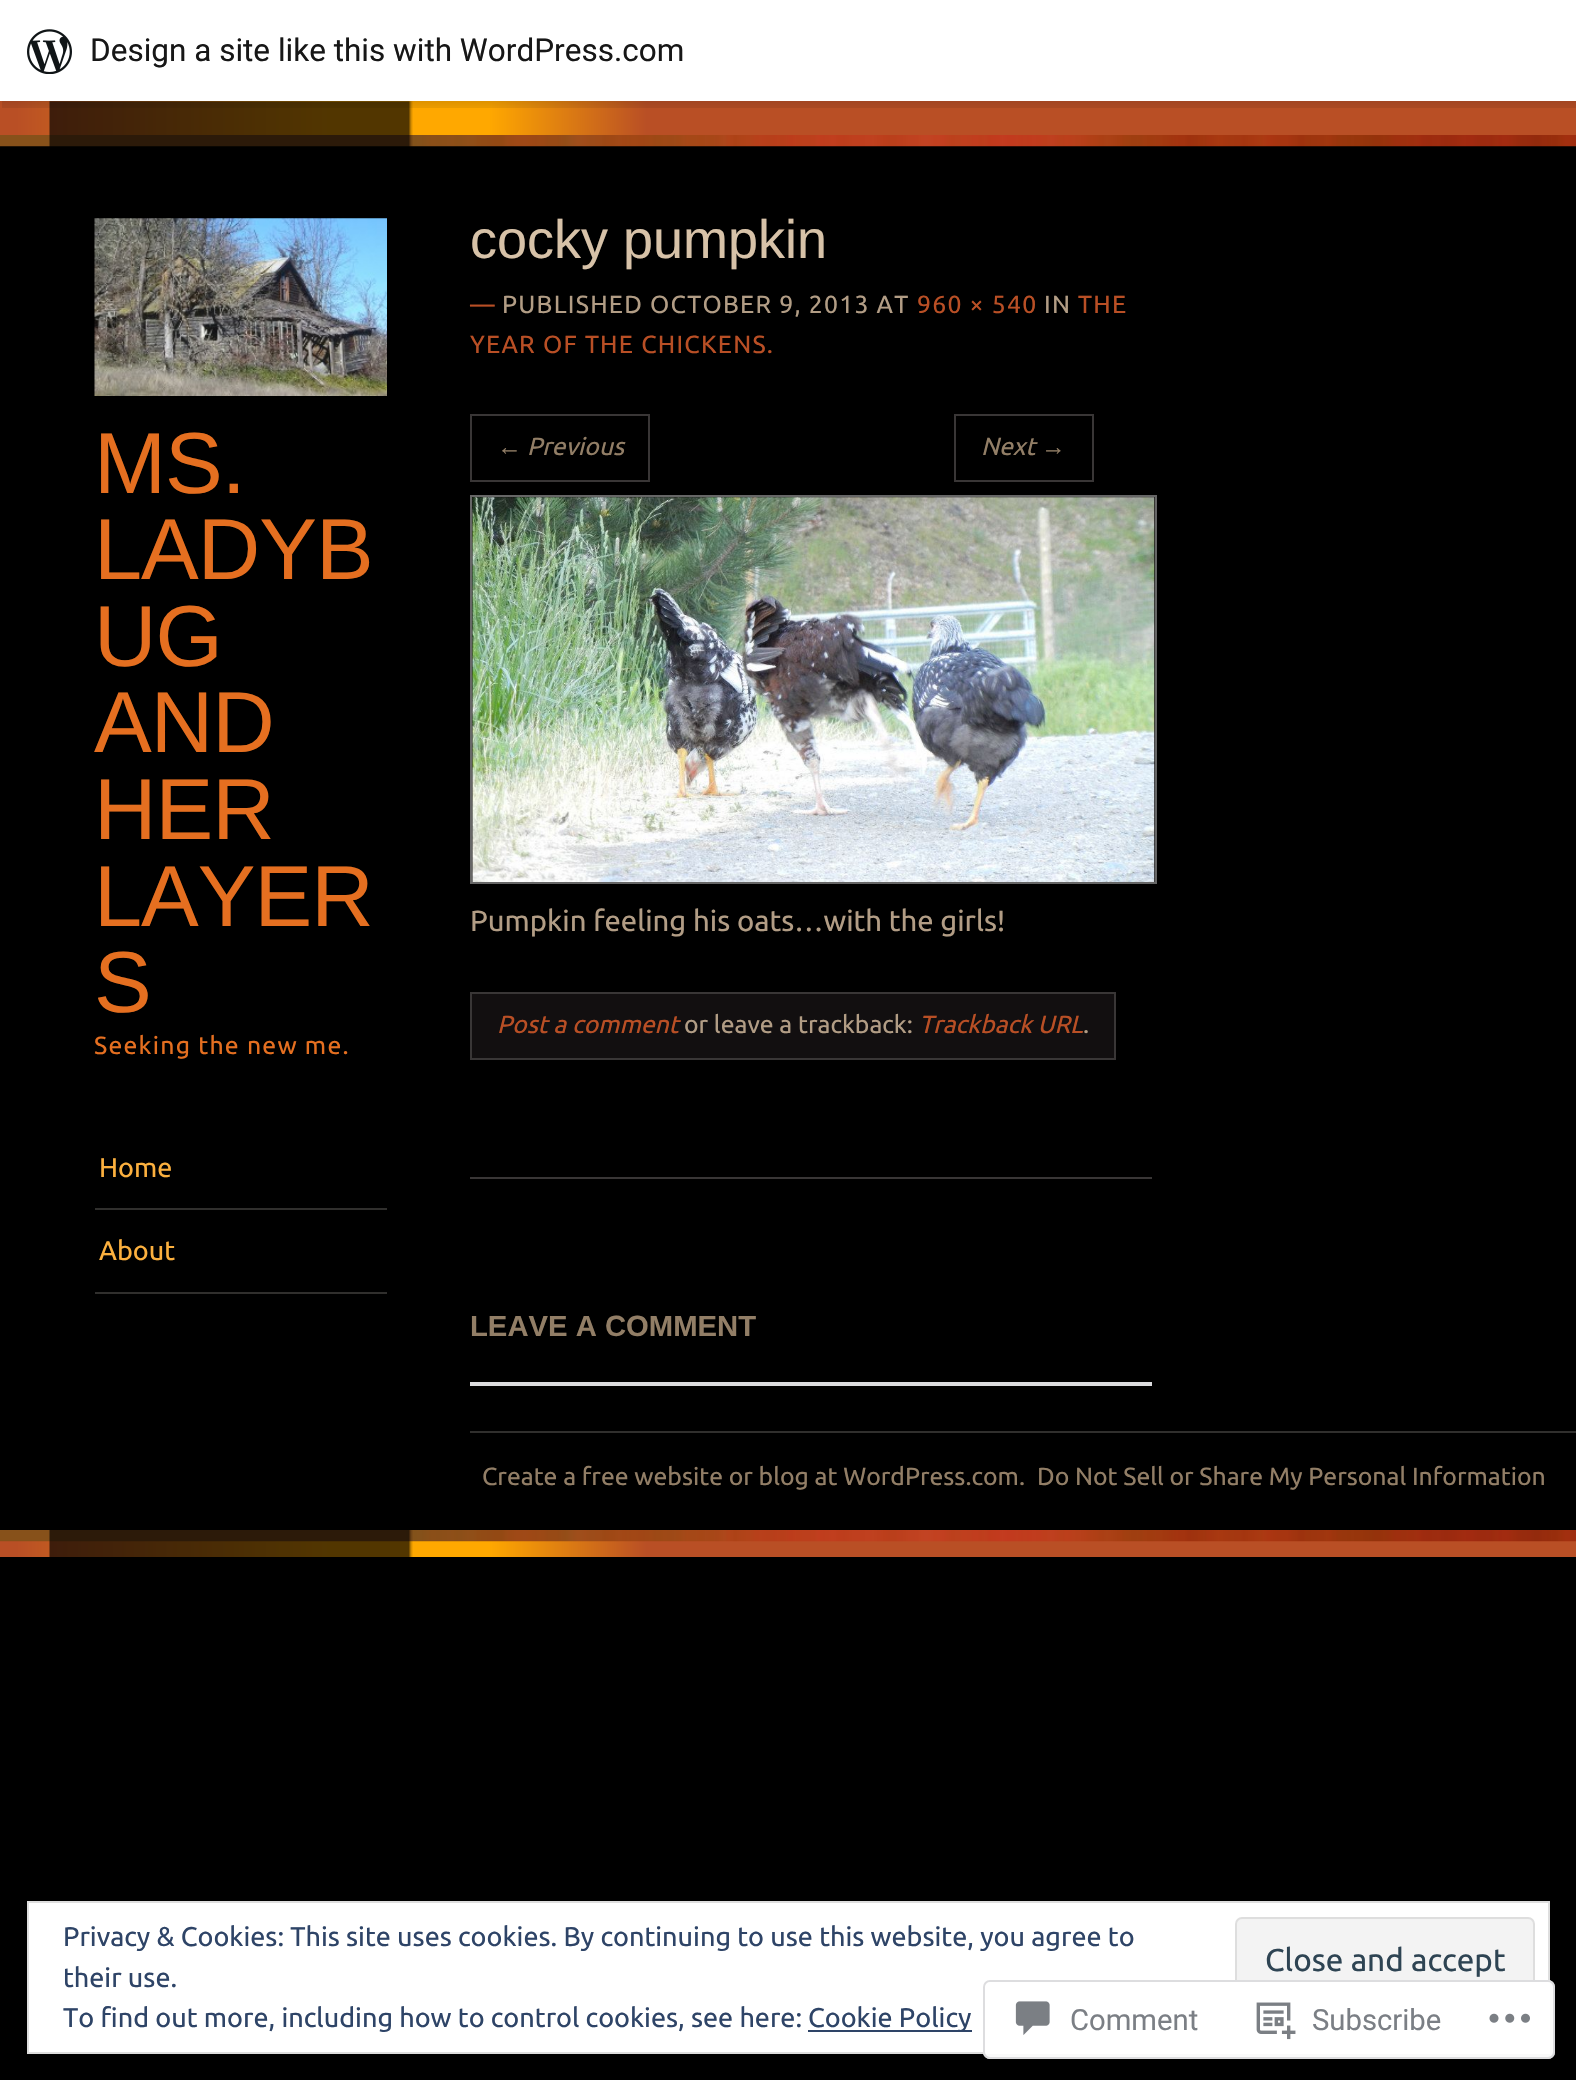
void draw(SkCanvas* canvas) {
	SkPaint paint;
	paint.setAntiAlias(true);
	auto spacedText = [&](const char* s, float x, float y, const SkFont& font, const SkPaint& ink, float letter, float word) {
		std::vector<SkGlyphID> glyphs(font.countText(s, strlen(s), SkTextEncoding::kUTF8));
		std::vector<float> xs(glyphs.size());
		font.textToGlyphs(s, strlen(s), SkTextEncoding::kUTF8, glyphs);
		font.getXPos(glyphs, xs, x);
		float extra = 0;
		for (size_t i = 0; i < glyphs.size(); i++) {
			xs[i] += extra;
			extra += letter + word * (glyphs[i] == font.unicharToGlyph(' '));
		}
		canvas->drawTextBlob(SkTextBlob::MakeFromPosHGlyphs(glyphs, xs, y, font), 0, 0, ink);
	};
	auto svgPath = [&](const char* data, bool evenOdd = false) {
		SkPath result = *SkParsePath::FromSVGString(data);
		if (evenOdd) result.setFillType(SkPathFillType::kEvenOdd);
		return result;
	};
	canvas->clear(0xff000000);
	{
		const SkColor colors[] = {0xffb94f25, 0xffffa800, 0xffffa800, 0xffb94f25};
		const float stops[] = {0.01, 0.21, 0.31, 0.41};
		const SkPoint ends[] = {{0, 124}, {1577, 124}};
		paint.setShader(SkGradientShader::MakeLinear(ends, colors, stops, 4, SkTileMode::kClamp));
		paint.setAlpha(255);
	}
	canvas->drawRect(SkRect::MakeXYWH(0, 101, 1576, 34), paint);
	canvas->drawImageRect(SkImages::DeferredFromEncodedData(SkData::MakeFromFileName("img2.png")), SkRect::MakeXYWH(0, 135, 1576, 12), SkSamplingOptions());
	{
		const SkColor colors[] = {0xffb94f25, 0xffffa800, 0xffffa800, 0xffb94f25};
		const float stops[] = {0.01, 0.21, 0.31, 0.41};
		const SkPoint ends[] = {{0, 1544}, {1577, 1544}};
		paint.setShader(SkGradientShader::MakeLinear(ends, colors, stops, 4, SkTileMode::kClamp));
		paint.setAlpha(255);
	}
	canvas->drawRect(SkRect::MakeXYWH(0, 1541, 1576, 16), paint);
	canvas->drawImageRect(SkImages::DeferredFromEncodedData(SkData::MakeFromFileName("img6.png")), SkRect::MakeXYWH(0, 1530, 1576, 12), SkSamplingOptions());
	canvas->drawImageRect(SkImages::DeferredFromEncodedData(SkData::MakeFromFileName("img3.png")), SkRect::MakeXYWH(49, 101, 364, 1456), SkSamplingOptions());
	paint.setShader(nullptr);
	paint.setColor(0x0d000000);
	paint.setMaskFilter(SkMaskFilter::MakeBlur(kNormal_SkBlurStyle, 2));
	canvas->drawRect(SkRect::MakeXYWH(0, 2, 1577, 102), paint);
	paint.setMaskFilter(nullptr);
	paint.setColor(0x14000000);
	canvas->drawPath(svgPath("M2 101V108H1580V7H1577V101Z"), paint);
	paint.setColor(0xffffffff);
	canvas->drawRect(SkRect::MakeXYWH(0, 0, 1576, 101), paint);
	canvas->drawImageRect(SkImages::DeferredFromEncodedData(SkData::MakeFromFileName("img1.png")), SkRect::MakeXYWH(27, 29, 45, 45), SkSamplingOptions());
	SkFont f1(fontMgr->matchFamilyStyle("Roboto", SkFontStyle::Normal()), 31.5);
	f1.setSubpixel(true);
	paint.setColor(0xff171717);
	canvas->drawString("Design a site like this with WordPress.com", 90, 61, f1, paint);
	canvas->drawImageRect(SkImages::DeferredFromEncodedData(SkData::MakeFromFileName("img4.png")), SkRect::MakeXYWH(94, 218, 293, 178), SkSamplingOptions());
	SkFont f2(fontMgr->matchFamilyStyle("Liberation Sans", SkFontStyle::Normal()), 86.5);
	f2.setSubpixel(true);
	paint.setColor(0xffe56f20);
	spacedText("MS.", 94, 493, f2, paint, -1, 0);
	spacedText("LADYB", 94, 579, f2, paint, -1, 0);
	spacedText("UG", 94, 666, f2, paint, -1, 0);
	spacedText("AND", 94, 752, f2, paint, -1, 0);
	spacedText("HER", 94, 839, f2, paint, -1, 0);
	spacedText("LAYER", 94, 926, f2, paint, -1, 0);
	spacedText("S", 94, 1012, f2, paint, -1, 0);
	SkFont f3(fontMgr->matchFamilyStyle("Ubuntu", SkFontStyle::Normal()), 24.75);
	f3.setSubpixel(true);
	spacedText("Seeking the new me.", 94, 1054, f3, paint, 1.25, 0);
	paint.setColor(0xff302f2d);
	canvas->drawRect(SkRect::MakeXYWH(95, 1208, 292, 2), paint);
	SkFont f4(fontMgr->matchFamilyStyle("Ubuntu", SkFontStyle::Normal()), 27);
	f4.setSubpixel(true);
	paint.setColor(0xfffcb03e);
	canvas->drawString("Home", 99, 1177, f4, paint);
	paint.setColor(0xff302f2d);
	canvas->drawRect(SkRect::MakeXYWH(95, 1292, 292, 2), paint);
	paint.setColor(0xfffcb03e);
	canvas->drawString("About", 99, 1260, f4, paint);
	paint.setColor(0xff393636);
	canvas->drawRect(SkRect::MakeXYWH(470, 1177, 682, 2), paint);
	SkFont f5(fontMgr->matchFamilyStyle("Liberation Sans", SkFontStyle::Normal()), 54);
	f5.setSubpixel(true);
	paint.setColor(0xffd7c2a8);
	canvas->drawString("cocky pumpkin", 470, 258, f5, paint);
	paint.setColor(0xffb94f25);
	spacedText("—", 470, 313, f3, paint, 1.25, 0);
	paint.setColor(0xffb29d85);
	spacedText("PUBLISHED OCTOBER 9, 2013 AT", 502, 313, f3, paint, 1.25, 0);
	paint.setColor(0xffb94f25);
	spacedText("960 × 540", 917, 313, f3, paint, 1.25, 0);
	paint.setColor(0xffb29d85);
	spacedText("IN", 1044, 313, f3, paint, 1.25, 0);
	paint.setColor(0xffb94f25);
	spacedText("THE", 1078, 313, f3, paint, 1.25, 0);
	spacedText("YEAR OF THE CHICKENS.", 470, 353, f3, paint, 1.25, 0);
	paint.setStroke(true);
	paint.setStrokeWidth(2);
	paint.setColor(0xff393636);
	canvas->drawRect(SkRect::MakeXYWH(471, 415, 178, 66), paint);
	SkFont f6(fontMgr->matchFamilyStyle("Liberation Sans", SkFontStyle::Italic()), 24.75);
	f6.setSubpixel(true);
	paint.setStroke(false);
	paint.setColor(0xff927e66);
	canvas->drawString("←", 497, 455, f6, paint);
	SkFont f7(fontMgr->matchFamilyStyle("Ubuntu", SkFontStyle::Italic()), 24.75);
	f7.setSubpixel(true);
	canvas->drawString("Previous", 527, 455, f7, paint);
	paint.setStroke(true);
	paint.setColor(0xff393636);
	canvas->drawRect(SkRect::MakeXYWH(955, 415, 138, 66), paint);
	paint.setStroke(false);
	paint.setColor(0xff927e66);
	canvas->drawString("Next", 981, 455, f7, paint);
	canvas->drawString("→", 1041, 455, f6, paint);
	paint.setColor(0xff120f10);
	canvas->drawRect(SkRect::MakeXYWH(471, 496, 685, 387), paint);
	paint.setStroke(true);
	paint.setColor(0xff666666);
	canvas->drawRect(SkRect::MakeXYWH(471, 496, 685, 387), paint);
	canvas->drawImageRect(SkImages::DeferredFromEncodedData(SkData::MakeFromFileName("img5.png")), SkRect::MakeXYWH(472, 497, 683, 385), SkSamplingOptions());
	SkFont f8(fontMgr->matchFamilyStyle("Ubuntu", SkFontStyle::Normal()), 29.25);
	f8.setSubpixel(true);
	paint.setStroke(false);
	paint.setColor(0xffb29d85);
	canvas->drawString("Pumpkin feeling his oats…with the girls!", 470, 931, f8, paint);
	paint.setColor(0xff120f10);
	canvas->drawRect(SkRect::MakeXYWH(471, 993, 644, 66), paint);
	paint.setStroke(true);
	paint.setColor(0xff393636);
	canvas->drawRect(SkRect::MakeXYWH(471, 993, 644, 66), paint);
	paint.setStroke(false);
	paint.setColor(0xffb94f25);
	canvas->drawString("Post a comment", 497, 1033, f7, paint);
	paint.setColor(0xffb29d85);
	canvas->drawString("or leave a trackback:", 684, 1033, f3, paint);
	paint.setColor(0xffb94f25);
	canvas->drawString("Trackback URL", 919, 1033, f7, paint);
	paint.setColor(0xffb29d85);
	canvas->drawString(".", 1083, 1033, f3, paint);
	SkFont f9(fontMgr->matchFamilyStyle("Liberation Sans", SkFontStyle::Bold()), 29.25);
	f9.setSubpixel(true);
	paint.setColor(0xff927e66);
	canvas->drawString("LEAVE A COMMENT", 470, 1336, f9, paint);
	paint.setColor(0xffdcdcde);
	canvas->drawRect(SkRect::MakeXYWH(470, 1382, 682, 4), paint);
	paint.setColor(0xff302f2d);
	canvas->drawRect(SkRect::MakeXYWH(470, 1431, 1106, 2), paint);
	paint.setColor(0xff927e66);
	canvas->drawString("Create a free website or blog at WordPress.com.", 482, 1485, f3, paint);
	canvas->drawString("Do Not Sell or Share My Personal Information", 1037, 1485, f3, paint);
	paint.setColor(0xffffffff);
	canvas->drawRect(SkRect::MakeXYWH(28, 1902, 1521, 151), paint);
	paint.setStroke(true);
	paint.setColor(0xffdedede);
	canvas->drawRect(SkRect::MakeXYWH(28, 1902, 1521, 151), paint);
	paint.setStroke(false);
	paint.setColor(0xff2e4467);
	canvas->drawString("Privacy & Cookies: This site uses cookies. By continuing to use this website, you agree to", 63, 1946, f4, paint);
	canvas->drawString("their use.", 63, 1987, f4, paint);
	paint.setColor(0xfff3f3f3);
	canvas->drawRoundRect(SkRect::MakeXYWH(1236, 1918, 298, 86), 6, 6, paint);
	paint.setStroke(true);
	paint.setColor(0xffdedede);
	canvas->drawRoundRect(SkRect::MakeXYWH(1236, 1918, 298, 86), 6, 6, paint);
	SkFont f10(fontMgr->matchFamilyStyle("Ubuntu", SkFontStyle::Normal()), 31.5);
	f10.setSubpixel(true);
	paint.setStroke(false);
	paint.setColor(0xff2e4453);
	canvas->drawString("Close and accept", 1265, 1971, f10, paint);
	paint.setColor(0xff2e4467);
	canvas->drawString("To find out more, including how to control cookies, see here:", 63, 2027, f4, paint);
	canvas->drawRect(SkRect::MakeXYWH(808, 2030, 164, 2), paint);
	canvas->drawString("Cookie Policy", 808, 2027, f4, paint);
	paint.setColor(0xfaffffff);
	canvas->drawRoundRect(SkRect::MakeXYWH(983, 1980, 572, 79), 7, 7, paint);
	paint.setStroke(true);
	paint.setColor(0xfadcdcde);
	canvas->drawRoundRect(SkRect::MakeXYWH(984, 1981, 570, 77), 6, 6, paint);
	canvas->drawImageRect(SkImages::DeferredFromEncodedData(SkData::MakeFromFileName("img7.png")), SkRect::MakeXYWH(1015, 2001, 35, 34), SkSamplingOptions());
	SkFont f11(fontMgr->matchFamilyStyle("Roboto", SkFontStyle::Normal()), 29.25);
	f11.setSubpixel(true);
	paint.setStroke(false);
	paint.setColor(0xff7b7f85);
	canvas->drawString("Comment", 1070, 2030, f11, paint);
	canvas->drawImageRect(SkImages::DeferredFromEncodedData(SkData::MakeFromFileName("img8.png")), SkRect::MakeXYWH(1256, 2002, 40, 38), SkSamplingOptions());
	canvas->drawString("Subscribe", 1312, 2030, f11, paint);
	canvas->drawImageRect(SkImages::DeferredFromEncodedData(SkData::MakeFromFileName("img9.png")), SkRect::MakeXYWH(1489, 2013, 41, 10), SkSamplingOptions());
}
